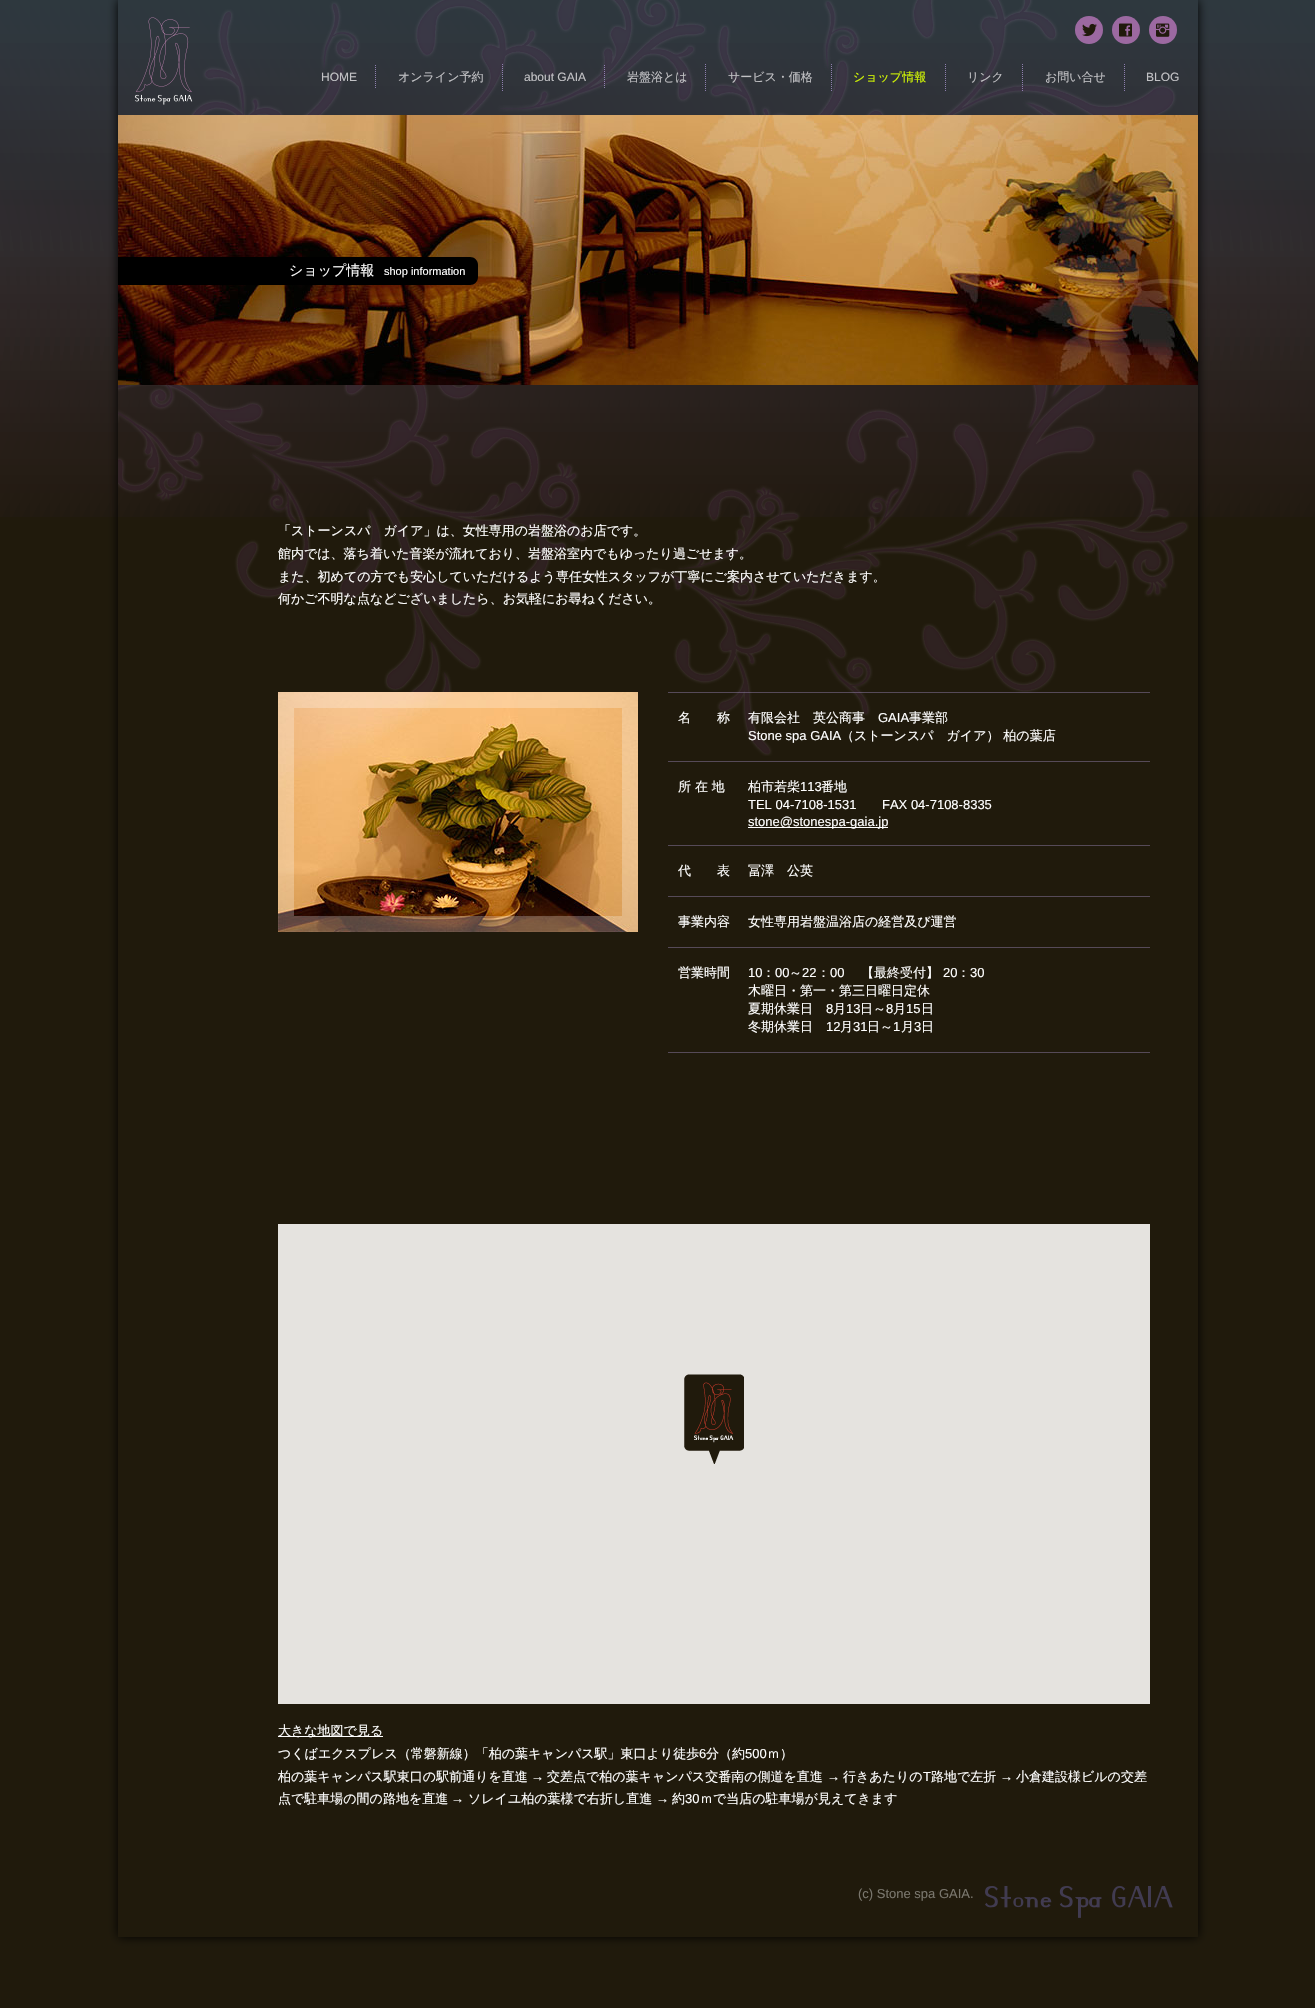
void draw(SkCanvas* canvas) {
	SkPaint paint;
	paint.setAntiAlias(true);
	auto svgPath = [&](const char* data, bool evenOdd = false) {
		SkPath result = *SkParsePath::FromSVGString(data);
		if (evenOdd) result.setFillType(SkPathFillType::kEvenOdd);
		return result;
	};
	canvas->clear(0xff201a0c);
	canvas->drawImageRect(SkImages::DeferredFromEncodedData(SkData::MakeFromFileName("img1.png")), SkRect::MakeXYWH(0, 0, 1315, 517), SkSamplingOptions());
	canvas->save();
	canvas->clipPath(svgPath("M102 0H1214V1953H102ZM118 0H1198V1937H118Z", true), true);
	paint.setColor(0xff000000);
	paint.setMaskFilter(SkMaskFilter::MakeBlur(kNormal_SkBlurStyle, 5));
	canvas->drawRect(SkRect::MakeXYWH(118, 0, 1080, 1937), paint);
	paint.setMaskFilter(nullptr);
	canvas->restore();
	canvas->drawImageRect(SkImages::DeferredFromEncodedData(SkData::MakeFromFileName("img2.png")), SkRect::MakeXYWH(118, 0, 1071, 756), SkSamplingOptions());
	canvas->drawImageRect(SkImages::DeferredFromEncodedData(SkData::MakeFromFileName("img3.png")), SkRect::MakeXYWH(135, 17, 58, 88), SkSamplingOptions());
	paint.setColor(0xff9c69a1);
	canvas->drawCircle(1089, 30, 14, paint);
	canvas->drawImageRect(SkImages::DeferredFromEncodedData(SkData::MakeFromFileName("img4.png")), SkRect::MakeXYWH(1082, 23, 15, 14), SkSamplingOptions());
	canvas->drawCircle(1126, 30, 14, paint);
	canvas->drawImageRect(SkImages::DeferredFromEncodedData(SkData::MakeFromFileName("img5.png")), SkRect::MakeXYWH(1119, 23, 13, 14), SkSamplingOptions());
	canvas->drawCircle(1163, 30, 14, paint);
	canvas->drawImageRect(SkImages::DeferredFromEncodedData(SkData::MakeFromFileName("img6.png")), SkRect::MakeXYWH(1156, 23, 14, 14), SkSamplingOptions());
	paint.setStroke(true);
	paint.setStrokeWidth(1);
	paint.setColor(0xff8e7fae);
	paint.setPathEffect(SkDashPathEffect::Make({{1, 1}}, 0));
	canvas->drawPath(svgPath("M375.5 65V89"), paint);
	paint.setPathEffect(nullptr);
	SkFont f1(fontMgr->matchFamilyStyle("Liberation Sans", SkFontStyle::Normal()), 12);
	f1.setSubpixel(true);
	paint.setStroke(false);
	paint.setColor(0xffc2c2c5);
	canvas->drawString("HOME", 321, 81, f1, paint);
	paint.setStroke(true);
	paint.setColor(0xcca692cb);
	paint.setPathEffect(SkDashPathEffect::Make({{1, 1}}, 0));
	canvas->drawPath(svgPath("M502.5 64V91"), paint);
	paint.setPathEffect(nullptr);
	SkFont f2(fontMgr->matchFamilyStyle("WenQuanYi Zen Hei", SkFontStyle(500, SkFontStyle::kNormal_Width, SkFontStyle::kUpright_Slant)), 12);
	f2.setSubpixel(true);
	paint.setStroke(false);
	paint.setColor(0xffc2c2c5);
	canvas->drawString("オンライン予約", 398, 81, f2, paint);
	paint.setStroke(true);
	paint.setColor(0xcca692cb);
	paint.setPathEffect(SkDashPathEffect::Make({{1, 1}}, 0));
	canvas->drawPath(svgPath("M604.5 65V89"), paint);
	paint.setPathEffect(nullptr);
	paint.setStroke(false);
	paint.setColor(0xffc2c2c5);
	canvas->drawString("about GAIA", 524, 81, f1, paint);
	paint.setStroke(true);
	paint.setColor(0xff8e7fae);
	paint.setPathEffect(SkDashPathEffect::Make({{1, 1}}, 0));
	canvas->drawPath(svgPath("M705.5 64V91"), paint);
	paint.setPathEffect(nullptr);
	paint.setStroke(false);
	paint.setColor(0xffc2c2c5);
	canvas->drawString("岩盤浴とは", 627, 81, f2, paint);
	paint.setStroke(true);
	paint.setColor(0xff8e7fae);
	paint.setPathEffect(SkDashPathEffect::Make({{1, 1}}, 0));
	canvas->drawPath(svgPath("M831.5 64V91"), paint);
	paint.setPathEffect(nullptr);
	paint.setStroke(false);
	paint.setColor(0xffc2c2c5);
	canvas->drawString("サービス・価格", 728, 81, f2, paint);
	paint.setStroke(true);
	paint.setColor(0xff8e7fae);
	paint.setPathEffect(SkDashPathEffect::Make({{1, 1}}, 0));
	canvas->drawPath(svgPath("M945.5 64V91"), paint);
	paint.setPathEffect(nullptr);
	paint.setStroke(false);
	paint.setColor(0xffd3f803);
	canvas->drawString("ショップ情報", 853, 81, f2, paint);
	paint.setStroke(true);
	paint.setColor(0xcca692cb);
	paint.setPathEffect(SkDashPathEffect::Make({{1, 1}}, 0));
	canvas->drawPath(svgPath("M1022.5 64V91"), paint);
	paint.setPathEffect(nullptr);
	paint.setStroke(false);
	paint.setColor(0xffc2c2c5);
	canvas->drawString("リンク", 967, 81, f2, paint);
	paint.setStroke(true);
	paint.setColor(0xff8e7fae);
	paint.setPathEffect(SkDashPathEffect::Make({{1, 1}}, 0));
	canvas->drawPath(svgPath("M1124.5 64V91"), paint);
	paint.setPathEffect(nullptr);
	paint.setStroke(false);
	paint.setColor(0xffc2c2c5);
	canvas->drawString("お問い合せ", 1045, 81, f2, paint);
	canvas->drawString("BLOG", 1146, 81, f1, paint);
	canvas->drawImageRect(SkImages::DeferredFromEncodedData(SkData::MakeFromFileName("img7.png")), SkRect::MakeXYWH(118, 115, 1080, 270), SkSamplingOptions());
	paint.setColor(0xff000000);
	canvas->drawPath(svgPath("M118 257H470C474.5 257 478 260.5 478 265V277C478 281.5 474.5 285 470 285H118Z"), paint);
	SkFont f3(fontMgr->matchFamilyStyle("WenQuanYi Zen Hei", SkFontStyle(500, SkFontStyle::kNormal_Width, SkFontStyle::kUpright_Slant)), 14);
	f3.setSubpixel(true);
	paint.setColor(0xffffffff);
	canvas->drawString("ショップ情報", 289, 275, f3, paint);
	SkFont f4(fontMgr->matchFamilyStyle("Liberation Sans", SkFontStyle::Normal()), 11);
	f4.setSubpixel(true);
	canvas->drawString("shop information", 384, 275, f4, paint);
	SkFont f5(fontMgr->matchFamilyStyle("WenQuanYi Zen Hei", SkFontStyle(500, SkFontStyle::kNormal_Width, SkFontStyle::kUpright_Slant)), 13);
	f5.setSubpixel(true);
	canvas->drawString("「ストーンスパ　ガイア」は、女性専用の岩盤浴のお店です。", 278, 535, f5, paint);
	canvas->drawString("館内では、落ち着いた音楽が流れており、岩盤浴室内でもゆったり過ごせます。", 278, 558, f5, paint);
	canvas->drawString("また、初めての方でも安心していただけるよう専任女性スタッフが丁寧にご案内させていただきます。", 278, 581, f5, paint);
	canvas->drawString("何かご不明な点などございましたら、お気軽にお尋ねください。", 278, 603, f5, paint);
	canvas->drawImageRect(SkImages::DeferredFromEncodedData(SkData::MakeFromFileName("img8.png")), SkRect::MakeXYWH(278, 692, 360, 240), SkSamplingOptions());
	paint.setStroke(true);
	paint.setStrokeWidth(16);
	paint.setColor(0x40ffffff);
	canvas->drawRect(SkRect::MakeXYWH(286, 700, 344, 224), paint);
	paint.setStroke(false);
	paint.setColor(0x66a692cb);
	canvas->drawRect(SkRect::MakeXYWH(668, 692, 482, 1), paint);
	paint.setColor(0xffffffff);
	canvas->drawString("名　　称", 678, 722, f5, paint);
	paint.setColor(0xff564a58);
	canvas->drawRect(SkRect::MakeXYWH(668, 761, 482, 1), paint);
	paint.setColor(0xffffffff);
	canvas->drawString("有限会社　英公商事", 748, 722, f5, paint);
	SkFont f6(fontMgr->matchFamilyStyle("Liberation Sans", SkFontStyle::Normal()), 13);
	f6.setSubpixel(true);
	canvas->drawString("GAIA", 878, 722, f6, paint);
	canvas->drawString("事業部", 909, 722, f5, paint);
	canvas->drawString("Stone spa GAIA", 748, 740, f6, paint);
	canvas->drawString("（ストーンスパ　ガイア） 柏の葉店", 841, 740, f5, paint);
	canvas->drawString("所 在 地", 678, 791, f5, paint);
	paint.setColor(0xff564a58);
	canvas->drawRect(SkRect::MakeXYWH(668, 845, 482, 1), paint);
	paint.setColor(0xffffffff);
	canvas->drawString("柏市若柴", 748, 791, f5, paint);
	canvas->drawString("113", 800, 791, f6, paint);
	canvas->drawString("番地", 821, 791, f5, paint);
	canvas->drawString("TEL 04-7108-1531", 748, 809, f6, paint);
	canvas->drawString("FAX 04-7108-8335", 882, 809, f6, paint);
	canvas->drawRect(SkRect::MakeXYWH(748, 827, 140, 1), paint);
	canvas->drawString("stone@stonespa-gaia.jp", 748, 826, f6, paint);
	canvas->drawString("代　　表", 678, 875, f5, paint);
	paint.setColor(0xff564a58);
	canvas->drawRect(SkRect::MakeXYWH(668, 896, 482, 1), paint);
	paint.setColor(0xffffffff);
	canvas->drawString("冨澤　公英", 748, 875, f5, paint);
	canvas->drawString("事業内容", 678, 926, f5, paint);
	paint.setColor(0xff564a58);
	canvas->drawRect(SkRect::MakeXYWH(668, 947, 482, 1), paint);
	paint.setColor(0xffffffff);
	canvas->drawString("女性専用岩盤温浴店の経営及び運営", 748, 926, f5, paint);
	canvas->drawString("営業時間", 678, 977, f5, paint);
	paint.setColor(0xff564a58);
	canvas->drawRect(SkRect::MakeXYWH(668, 1052, 482, 1), paint);
	paint.setColor(0xffffffff);
	canvas->drawString("10", 748, 977, f6, paint);
	canvas->drawString("：", 762, 977, f5, paint);
	canvas->drawString("00", 775, 977, f6, paint);
	canvas->drawString("～", 789, 977, f5, paint);
	canvas->drawString("22", 802, 977, f6, paint);
	canvas->drawString("：", 817, 977, f5, paint);
	canvas->drawString("00", 830, 977, f6, paint);
	canvas->drawString("【最終受付】", 861, 977, f5, paint);
	canvas->drawString("20", 943, 977, f6, paint);
	canvas->drawString("：", 957, 977, f5, paint);
	canvas->drawString("30", 970, 977, f6, paint);
	canvas->drawString("木曜日・第一・第三日曜日定休", 748, 995, f5, paint);
	canvas->drawString("夏期休業日", 748, 1013, f5, paint);
	canvas->drawString("8", 826, 1013, f6, paint);
	canvas->drawString("月", 833, 1013, f5, paint);
	canvas->drawString("13", 846, 1013, f6, paint);
	canvas->drawString("日～", 860, 1013, f5, paint);
	canvas->drawString("8", 886, 1013, f6, paint);
	canvas->drawString("月", 893, 1013, f5, paint);
	canvas->drawString("15", 906, 1013, f6, paint);
	canvas->drawString("日", 921, 1013, f5, paint);
	canvas->drawString("冬期休業日", 748, 1031, f5, paint);
	canvas->drawString("12", 826, 1031, f6, paint);
	canvas->drawString("月", 840, 1031, f5, paint);
	canvas->drawString("31", 853, 1031, f6, paint);
	canvas->drawString("日～", 867, 1031, f5, paint);
	canvas->drawString("1", 893, 1031, f6, paint);
	canvas->drawString("月", 901, 1031, f5, paint);
	canvas->drawString("3", 914, 1031, f6, paint);
	canvas->drawString("日", 921, 1031, f5, paint);
	paint.setColor(0xffe5e3df);
	canvas->drawRect(SkRect::MakeXYWH(278, 1224, 872, 480), paint);
	canvas->drawImageRect(SkImages::DeferredFromEncodedData(SkData::MakeFromFileName("img9.png")), SkRect::MakeXYWH(684, 1374, 60, 90), SkSamplingOptions());
	paint.setColor(0xffffffff);
	canvas->drawRect(SkRect::MakeXYWH(278, 1736, 105, 1), paint);
	canvas->drawString("大きな地図で見る", 278, 1735, f5, paint);
	canvas->drawString("つくばエクスプレス（常磐新線）「柏の葉キャンパス駅」東口より徒歩", 278, 1758, f5, paint);
	canvas->drawString("6", 699, 1758, f6, paint);
	canvas->drawString("分（約", 706, 1758, f5, paint);
	canvas->drawString("500", 745, 1758, f6, paint);
	canvas->drawString("ｍ）", 767, 1758, f5, paint);
	canvas->drawString("柏の葉キャンパス駅東口の駅前通りを直進", 278, 1781, f5, paint);
	canvas->drawString("→", 531, 1781, f6, paint);
	canvas->drawString("交差点で柏の葉キャンパス交番南の側道を直進", 547, 1781, f5, paint);
	canvas->drawString("→", 827, 1781, f6, paint);
	canvas->drawString("行きあたりの", 843, 1781, f5, paint);
	canvas->drawString("T", 923, 1781, f6, paint);
	canvas->drawString("路地で左折", 931, 1781, f5, paint);
	canvas->drawString("→", 1000, 1781, f6, paint);
	canvas->drawString("小倉建設様ビルの交差", 1016, 1781, f5, paint);
	canvas->drawString("点で駐車場の間の路地を直進", 278, 1803, f5, paint);
	canvas->drawString("→", 451, 1803, f6, paint);
	canvas->drawString("ソレイユ柏の葉様で右折し直進", 468, 1803, f5, paint);
	canvas->drawString("→", 656, 1803, f6, paint);
	canvas->drawString("約", 672, 1803, f5, paint);
	canvas->drawString("30", 685, 1803, f6, paint);
	canvas->drawString("ｍで当店の駐車場が見えてきます", 700, 1803, f5, paint);
	paint.setColor(0xff79766d);
	canvas->drawString("(c) Stone spa GAIA.", 858, 1898, f6, paint);
	canvas->drawImageRect(SkImages::DeferredFromEncodedData(SkData::MakeFromFileName("img10.png")), SkRect::MakeXYWH(985, 1886, 188, 32), SkSamplingOptions());
}
